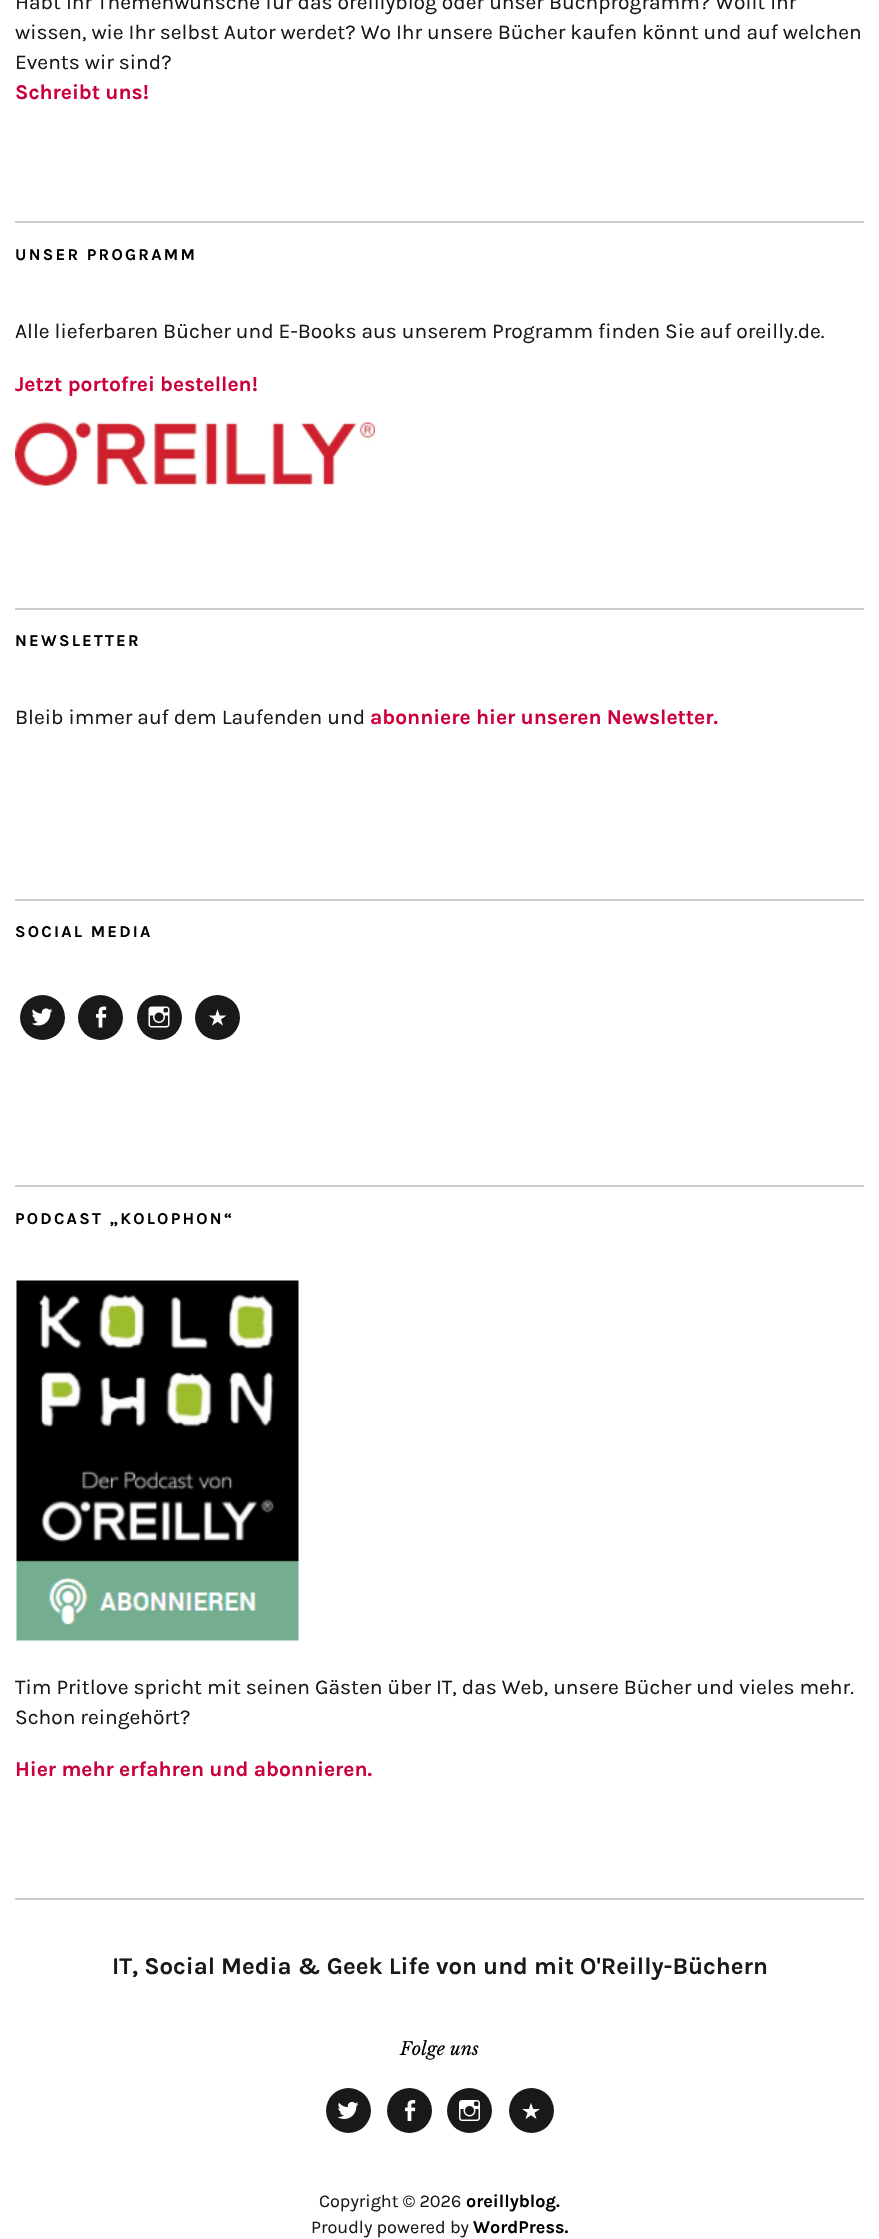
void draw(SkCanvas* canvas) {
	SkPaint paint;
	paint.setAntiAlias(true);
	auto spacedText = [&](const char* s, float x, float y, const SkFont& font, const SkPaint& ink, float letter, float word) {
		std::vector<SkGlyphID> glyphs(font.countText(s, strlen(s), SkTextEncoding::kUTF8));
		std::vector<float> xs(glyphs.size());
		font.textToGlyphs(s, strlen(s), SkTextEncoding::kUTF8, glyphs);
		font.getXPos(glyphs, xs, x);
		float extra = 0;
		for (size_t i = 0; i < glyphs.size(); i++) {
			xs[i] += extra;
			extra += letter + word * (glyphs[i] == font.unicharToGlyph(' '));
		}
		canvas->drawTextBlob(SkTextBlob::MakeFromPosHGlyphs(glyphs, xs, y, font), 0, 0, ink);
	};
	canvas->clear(0xffffffff);
	SkFont f1(fontMgr->matchFamilyStyle("Karla", SkFontStyle::Normal()), 21);
	f1.setSubpixel(true);
	paint.setColor(0xff191919);
	canvas->drawString("Habt Ihr Themenwünsche für das oreillyblog oder unser Buchprogramm? Wollt Ihr", 15, 9, f1, paint);
	canvas->drawString("wissen, wie Ihr selbst Autor werdet? Wo Ihr unsere Bücher kaufen könnt und auf welchen", 15, 39, f1, paint);
	canvas->drawString("Events wir sind?", 15, 69, f1, paint);
	SkFont f2(fontMgr->matchFamilyStyle("Karla", SkFontStyle::Bold()), 21);
	f2.setSubpixel(true);
	paint.setColor(0xffcc003b);
	canvas->drawString("Schreibt uns!", 15, 99, f2, paint);
	paint.setColor(0xffcccccc);
	canvas->drawRect(SkRect::MakeXYWH(15, 221, 849, 2), paint);
	canvas->drawRect(SkRect::MakeXYWH(15, 608, 849, 2), paint);
	SkFont f3(fontMgr->matchFamilyStyle("Karla", SkFontStyle::Bold()), 16.5);
	f3.setSubpixel(true);
	paint.setColor(0xff000000);
	spacedText("UNSER PROGRAMM", 15, 260, f3, paint, 2.25, 0);
	paint.setColor(0xff191919);
	canvas->drawString("Alle lieferbaren Bücher und E-Books aus unserem Programm finden Sie auf oreilly.de.", 15, 338, f1, paint);
	paint.setColor(0xffcc003b);
	canvas->drawString("Jetzt portofrei bestellen!", 15, 391, f2, paint);
	canvas->drawImageRect(SkImages::DeferredFromEncodedData(SkData::MakeFromFileName("img1.png")), SkRect::MakeXYWH(15, 422, 360, 64), SkSamplingOptions());
	paint.setColor(0xff000000);
	spacedText("NEWSLETTER", 15, 646, f3, paint, 2.25, 0);
	paint.setColor(0xff191919);
	canvas->drawString("Bleib immer auf dem Laufenden und", 15, 724, f1, paint);
	paint.setColor(0xffcc003b);
	canvas->drawString("abonniere hier unseren Newsletter.", 370, 724, f2, paint);
	paint.setColor(0xffcccccc);
	canvas->drawRect(SkRect::MakeXYWH(15, 899, 849, 2), paint);
	paint.setColor(0xff000000);
	spacedText("SOCIAL MEDIA", 15, 937, f3, paint, 2.25, 0);
	paint.setColor(0xff191919);
	canvas->drawCircle(42.5, 1017.5, 22.5, paint);
	canvas->drawImageRect(SkImages::DeferredFromEncodedData(SkData::MakeFromFileName("img2.png")), SkRect::MakeXYWH(31, 1008, 22, 18), SkSamplingOptions());
	canvas->drawCircle(100.5, 1017.5, 22.5, paint);
	canvas->drawImageRect(SkImages::DeferredFromEncodedData(SkData::MakeFromFileName("img3.png")), SkRect::MakeXYWH(96, 1006, 11, 22), SkSamplingOptions());
	canvas->drawCircle(159.5, 1017.5, 22.5, paint);
	canvas->drawImageRect(SkImages::DeferredFromEncodedData(SkData::MakeFromFileName("img4.png")), SkRect::MakeXYWH(148, 1006, 22, 22), SkSamplingOptions());
	canvas->drawCircle(217.5, 1017.5, 22.5, paint);
	canvas->drawImageRect(SkImages::DeferredFromEncodedData(SkData::MakeFromFileName("img5.png")), SkRect::MakeXYWH(208, 1009, 19, 17), SkSamplingOptions());
	paint.setColor(0xffcccccc);
	canvas->drawRect(SkRect::MakeXYWH(15, 1185, 849, 2), paint);
	paint.setColor(0xff000000);
	spacedText("PODCAST „KOLOPHON“", 15, 1224, f3, paint, 2.25, 0);
	canvas->drawImageRect(SkImages::DeferredFromEncodedData(SkData::MakeFromFileName("img6.png")), SkRect::MakeXYWH(16, 1280, 283, 361), SkSamplingOptions());
	paint.setColor(0xff191919);
	canvas->drawString("Tim Pritlove spricht mit seinen Gästen über IT, das Web, unsere Bücher und vieles mehr.", 15, 1694, f1, paint);
	canvas->drawString("Schon reingehört?", 15, 1724, f1, paint);
	paint.setColor(0xffcc003b);
	canvas->drawString("Hier mehr erfahren und abonnieren.", 15, 1776, f2, paint);
	paint.setColor(0xffcccccc);
	canvas->drawRect(SkRect::MakeXYWH(15, 1898, 849, 2), paint);
	SkFont f4(fontMgr->matchFamilyStyle("Karla", SkFontStyle::Bold()), 24);
	f4.setSubpixel(true);
	paint.setColor(0xff191919);
	canvas->drawString("IT, Social Media & Geek Life von und mit O'Reilly-Büchern", 112, 1974, f4, paint);
	SkFont f5(fontMgr->matchFamilyStyle("Libre Baskerville", SkFontStyle::Italic()), 18);
	f5.setSubpixel(true);
	paint.setColor(0xff000000);
	canvas->drawString("Folge uns", 400, 2055, f5, paint);
	paint.setColor(0xff191919);
	canvas->drawCircle(348.5, 2110.5, 22.5, paint);
	canvas->drawImageRect(SkImages::DeferredFromEncodedData(SkData::MakeFromFileName("img7.png")), SkRect::MakeXYWH(337, 2101, 22, 18), SkSamplingOptions());
	canvas->drawCircle(409.5, 2110.5, 22.5, paint);
	canvas->drawImageRect(SkImages::DeferredFromEncodedData(SkData::MakeFromFileName("img8.png")), SkRect::MakeXYWH(405, 2100, 11, 21), SkSamplingOptions());
	canvas->drawCircle(469.5, 2110.5, 22.5, paint);
	canvas->drawImageRect(SkImages::DeferredFromEncodedData(SkData::MakeFromFileName("img9.png")), SkRect::MakeXYWH(459, 2100, 21, 21), SkSamplingOptions());
	canvas->drawCircle(531.5, 2110.5, 22.5, paint);
	canvas->drawImageRect(SkImages::DeferredFromEncodedData(SkData::MakeFromFileName("img10.png")), SkRect::MakeXYWH(522, 2103, 18, 16), SkSamplingOptions());
	SkFont f6(fontMgr->matchFamilyStyle("Karla", SkFontStyle::Normal()), 18);
	f6.setSubpixel(true);
	canvas->drawString("Copyright © 2026", 319, 2207, f6, paint);
	SkFont f7(fontMgr->matchFamilyStyle("Karla", SkFontStyle::Bold()), 18);
	f7.setSubpixel(true);
	paint.setColor(0xff000000);
	canvas->drawString("oreillyblog.", 466, 2207, f7, paint);
	paint.setColor(0xff191919);
	canvas->drawString("Proudly powered by", 311, 2233, f6, paint);
	paint.setColor(0xff000000);
	canvas->drawString("WordPress.", 473, 2233, f7, paint);
}
